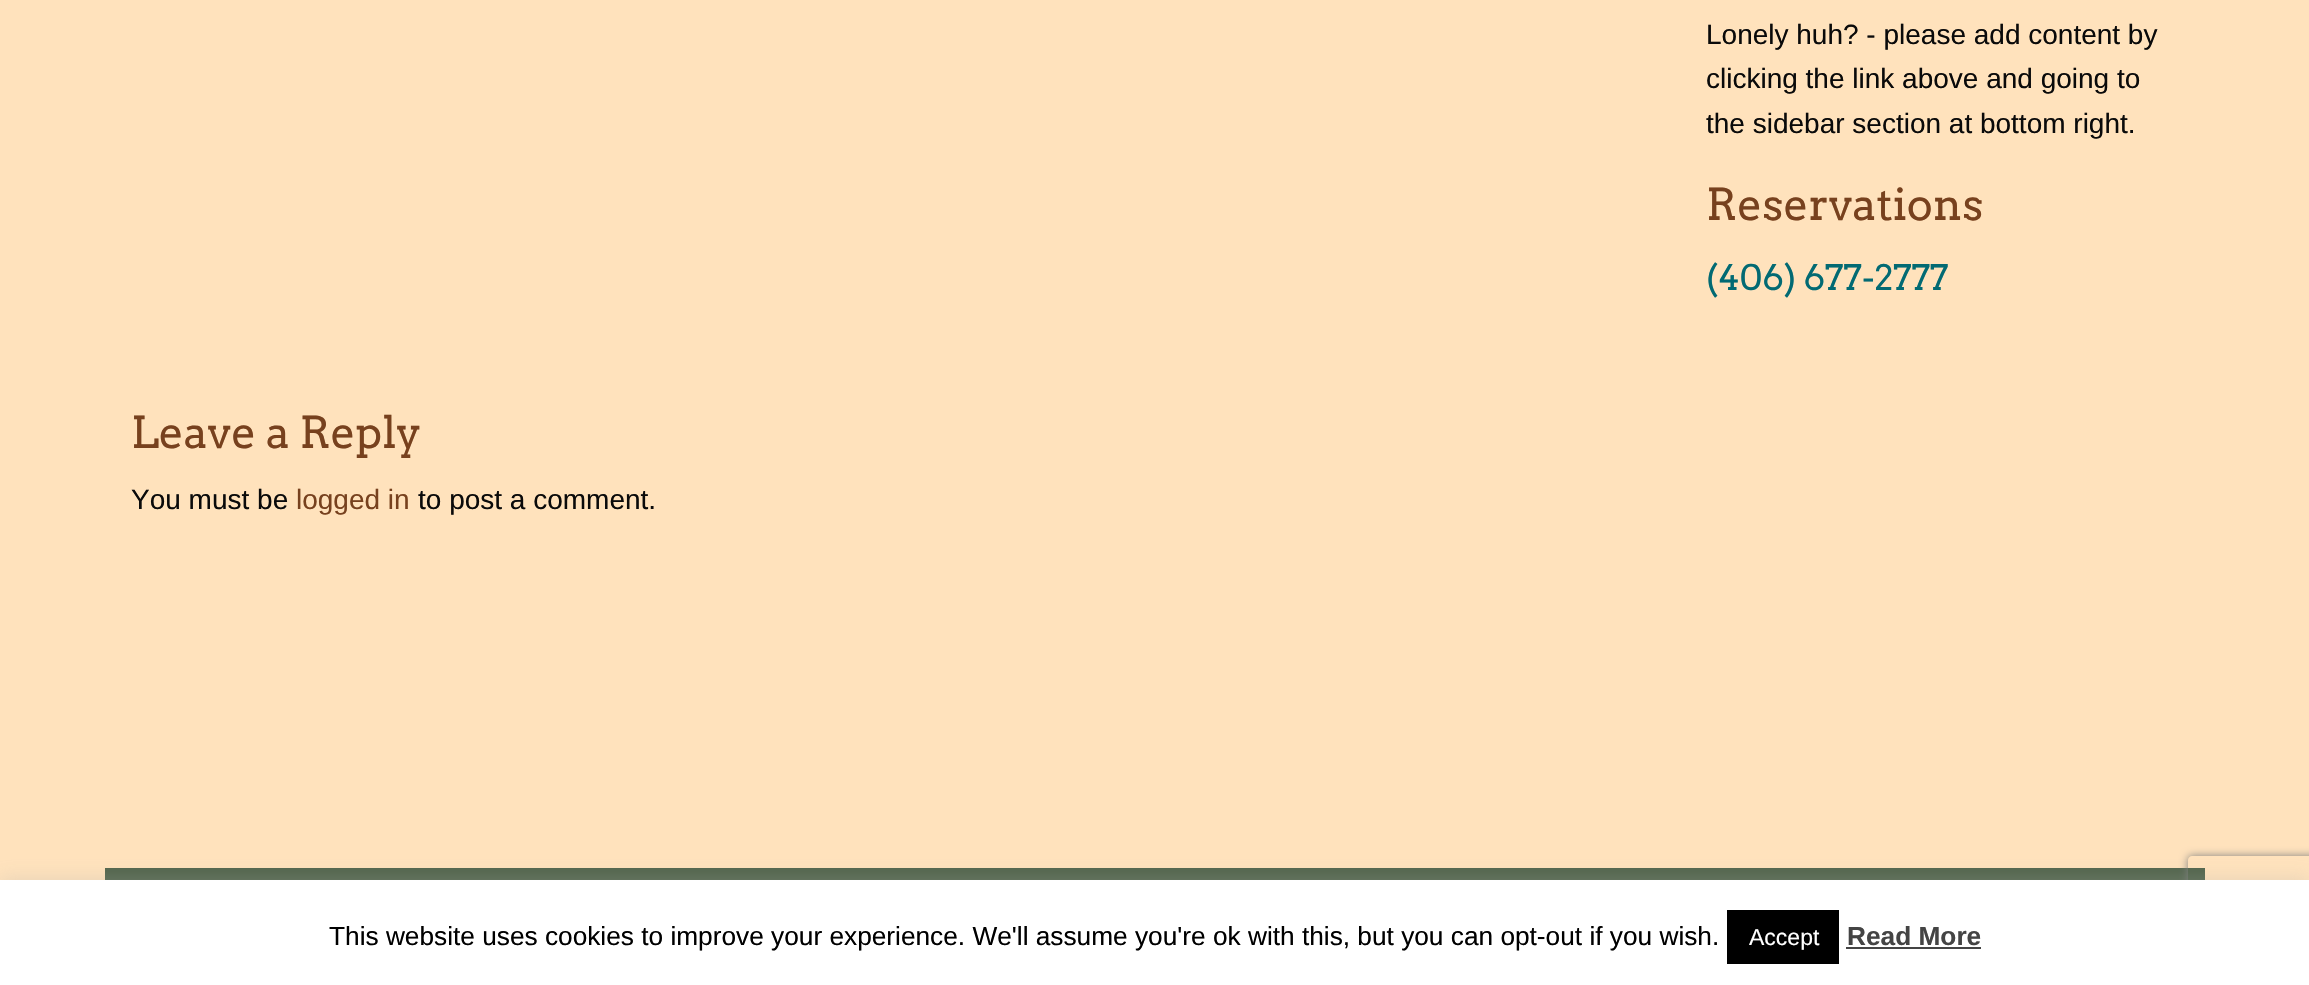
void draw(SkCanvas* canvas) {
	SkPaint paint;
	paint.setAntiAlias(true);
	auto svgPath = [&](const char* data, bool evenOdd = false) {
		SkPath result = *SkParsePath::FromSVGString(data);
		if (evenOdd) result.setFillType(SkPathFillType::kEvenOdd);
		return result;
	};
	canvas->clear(0xffffe2bc);
	SkFont f1(fontMgr->matchFamilyStyle("Liberation Sans", SkFontStyle::Normal()), 28);
	f1.setSubpixel(true);
	paint.setColor(0xff0a0a0a);
	canvas->drawString("Lonely huh? - please add content by", 1706, 44, f1, paint);
	canvas->drawString("clicking the link above and going to", 1706, 88, f1, paint);
	canvas->drawString("the sidebar section at bottom right.", 1706, 133, f1, paint);
	SkFont f2(fontMgr->matchFamilyStyle("Arvo", SkFontStyle::Normal()), 43.75);
	f2.setSubpixel(true);
	paint.setColor(0xff77411e);
	canvas->drawString("Reservations", 1706, 220, f2, paint);
	SkFont f3(fontMgr->matchFamilyStyle("Arvo", SkFontStyle::Normal()), 35);
	f3.setSubpixel(true);
	paint.setColor(0xff026a73);
	canvas->drawString("(406) 677-2777", 1706, 290, f3, paint);
	paint.setColor(0xff77411e);
	canvas->drawString("Leave a Reply", 131, 448, f2, paint);
	paint.setColor(0xff0a0a0a);
	canvas->drawString("You must be", 131, 509, f1, paint);
	paint.setColor(0xff77411e);
	canvas->drawString("logged in", 296, 509, f1, paint);
	paint.setColor(0xff0a0a0a);
	canvas->drawString("to post a comment.", 418, 509, f1, paint);
	paint.setColor(0xff52654c);
	canvas->drawRect(SkRect::MakeXYWH(105, 868, 2100, 12), paint);
	paint.setColor(0x4dacabab);
	paint.setMaskFilter(SkMaskFilter::MakeBlur(kNormal_SkBlurStyle, 9));
	canvas->drawRect(SkRect::MakeXYWH(0, 879, 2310, 105), paint);
	paint.setMaskFilter(nullptr);
	canvas->save();
	canvas->clipPath(svgPath("M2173 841H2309V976H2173ZM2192 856H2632C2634 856 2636 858 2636 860V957C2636 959 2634 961 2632 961H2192C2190 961 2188 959 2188 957V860C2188 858 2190 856 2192 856Z", true), true);
	paint.setColor(0xff808080);
	paint.setMaskFilter(SkMaskFilter::MakeBlur(kNormal_SkBlurStyle, 4.5));
	canvas->drawRoundRect(SkRect::MakeXYWH(2188, 856, 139, 105), 4, 4, paint);
	paint.setMaskFilter(nullptr);
	canvas->restore();
	paint.setColor(0xffffffff);
	canvas->drawRect(SkRect::MakeXYWH(0, 880, 2309, 105), paint);
	SkFont f4(fontMgr->matchFamilyStyle("Liberation Sans", SkFontStyle::Normal()), 26.25);
	f4.setSubpixel(true);
	paint.setColor(0xff000000);
	canvas->drawString("This website uses cookies to improve your experience. We'll assume you're ok with this, but you can opt-out if you wish.", 329, 945, f4, paint);
	canvas->drawRect(SkRect::MakeXYWH(1727, 910, 112, 54), paint);
	SkFont f5(fontMgr->matchFamilyStyle("Liberation Sans", SkFontStyle::Normal()), 23);
	f5.setSubpixel(true);
	paint.setColor(0xffffffff);
	canvas->drawString("Accept", 1749, 945, f5, paint);
	SkFont f6(fontMgr->matchFamilyStyle("Liberation Sans", SkFontStyle::Bold()), 26.25);
	f6.setSubpixel(true);
	paint.setColor(0xff444444);
	canvas->drawString("Read More", 1847, 945, f6, paint);
	canvas->drawRect(SkRect::MakeXYWH(1846, 947, 135, 2), paint);
}
